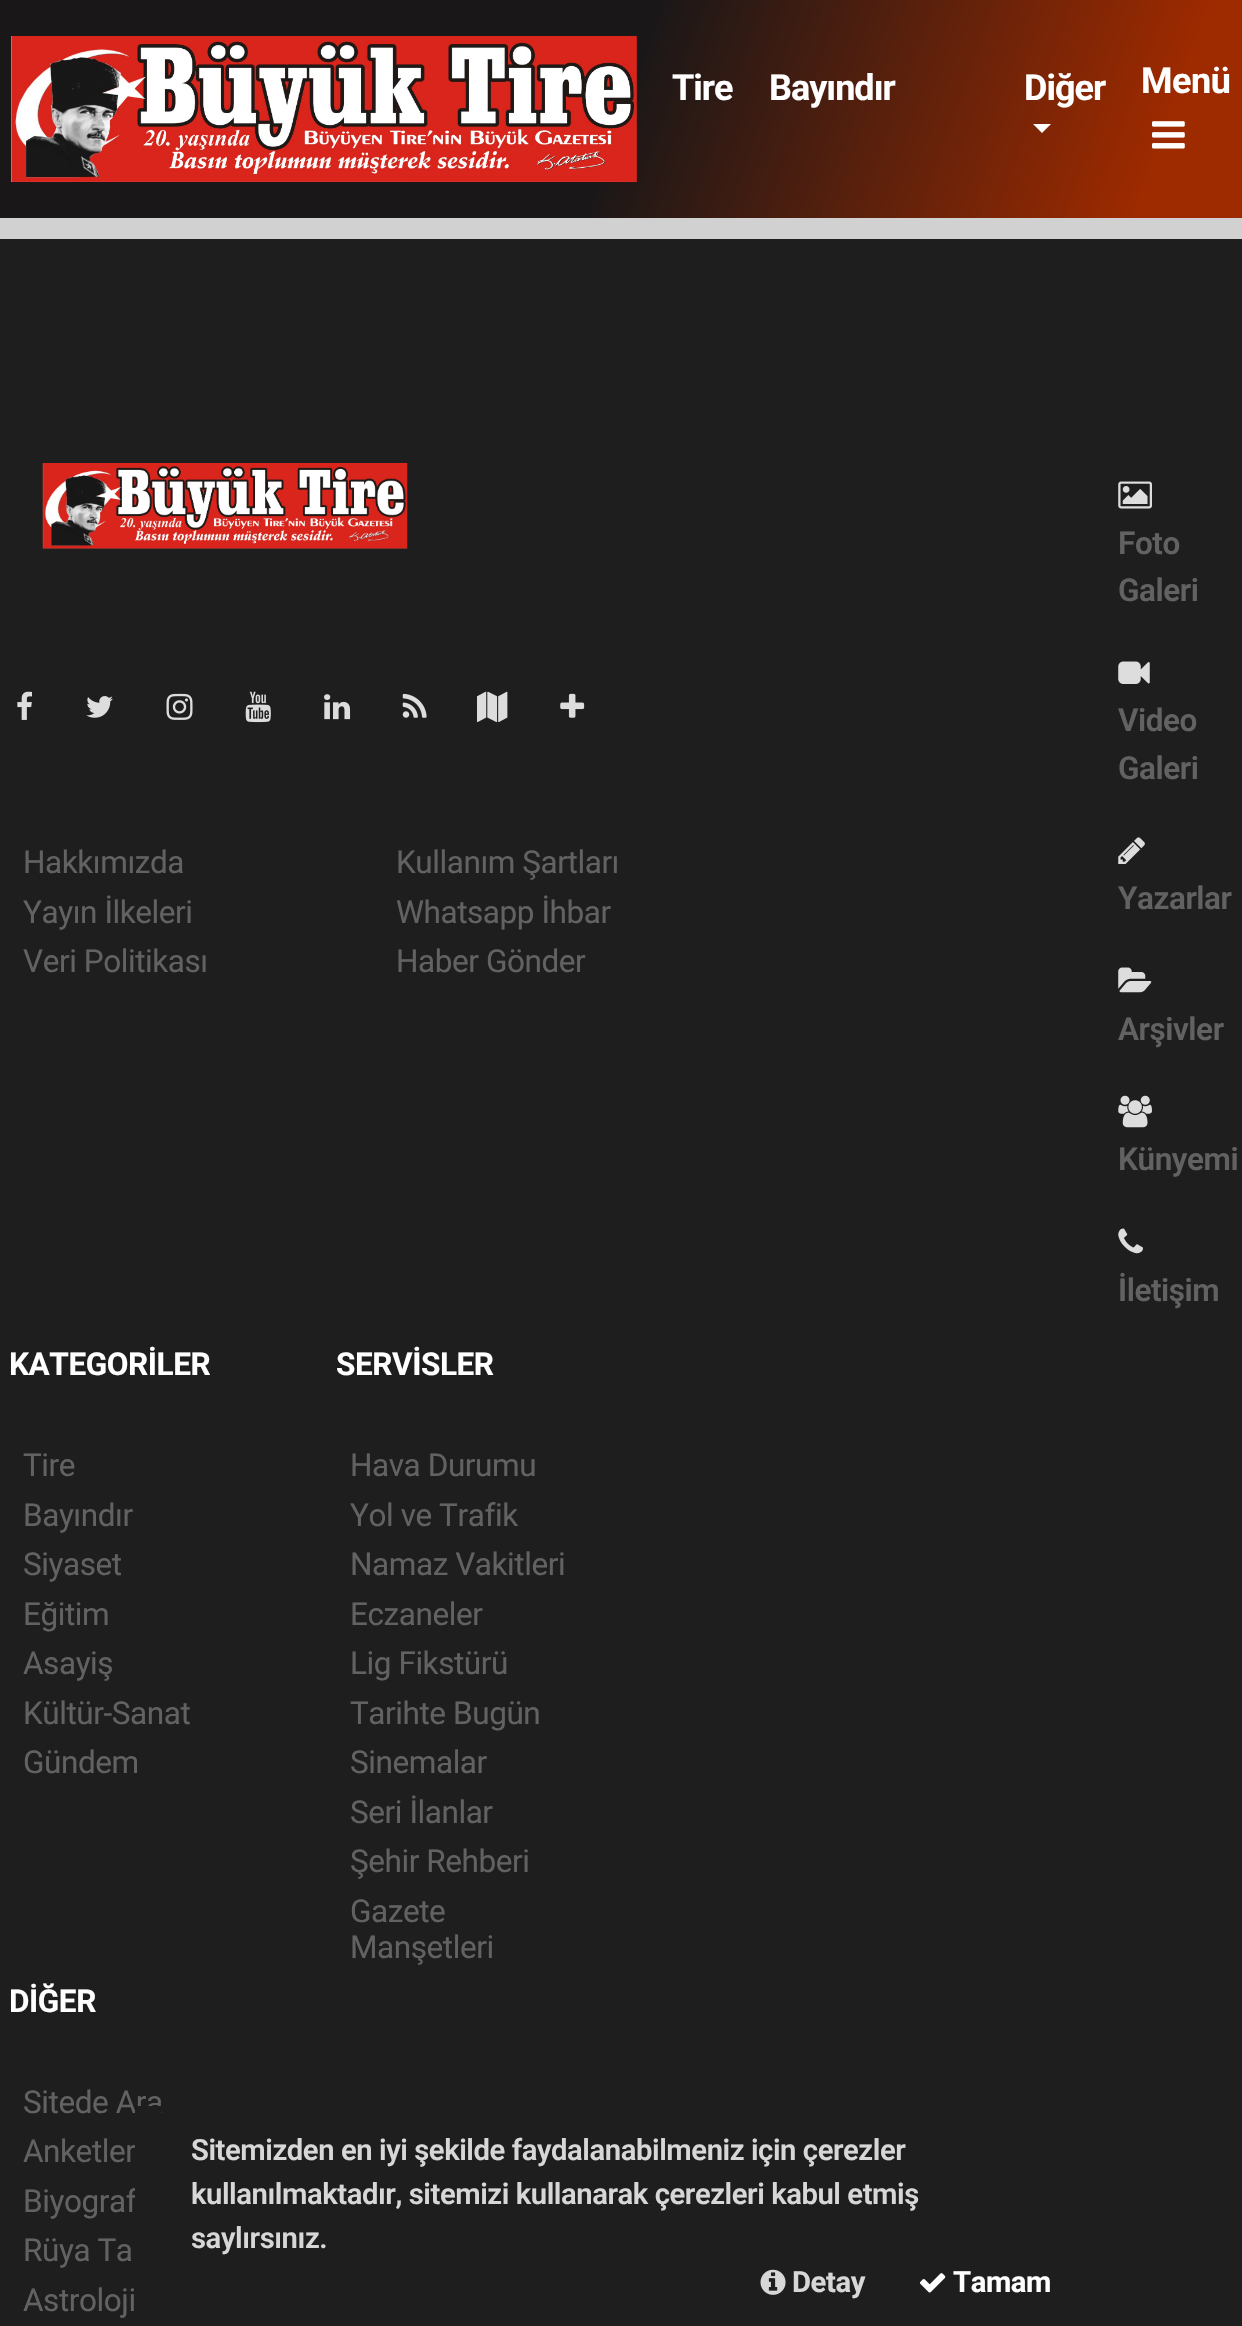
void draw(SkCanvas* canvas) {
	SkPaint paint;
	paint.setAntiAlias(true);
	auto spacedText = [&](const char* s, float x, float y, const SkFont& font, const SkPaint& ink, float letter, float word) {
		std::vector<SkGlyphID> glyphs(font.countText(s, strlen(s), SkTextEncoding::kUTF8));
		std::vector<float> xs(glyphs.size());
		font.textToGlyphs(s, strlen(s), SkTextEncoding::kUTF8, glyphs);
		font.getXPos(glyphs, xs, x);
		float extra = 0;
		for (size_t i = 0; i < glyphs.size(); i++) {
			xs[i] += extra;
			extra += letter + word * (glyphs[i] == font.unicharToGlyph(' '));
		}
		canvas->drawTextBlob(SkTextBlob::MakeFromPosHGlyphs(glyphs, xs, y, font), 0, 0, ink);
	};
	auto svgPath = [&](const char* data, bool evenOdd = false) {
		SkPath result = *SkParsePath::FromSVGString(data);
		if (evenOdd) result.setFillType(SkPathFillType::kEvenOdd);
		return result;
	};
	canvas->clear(0xffd1d1d1);
	{
		const SkColor colors[] = {0xff1a1718, 0xff9e2a00};
		const float stops[] = {0.5, 0.92};
		const SkPoint ends[] = {{35, -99}, {1207, 318}};
		paint.setShader(SkGradientShader::MakeLinear(ends, colors, stops, 2, SkTileMode::kClamp));
		paint.setAlpha(255);
	}
	canvas->drawRect(SkRect::MakeXYWH(0, 0, 1242, 218), paint);
	canvas->drawImageRect(SkImages::DeferredFromEncodedData(SkData::MakeFromFileName("img1.png")), SkRect::MakeXYWH(11, 36, 626, 146), SkSamplingOptions());
	SkFont f1(fontMgr->matchFamilyStyle("Roboto", SkFontStyle::Bold()), 36);
	f1.setSubpixel(true);
	paint.setShader(nullptr);
	paint.setColor(0xffffffff);
	spacedText("Tire", 672, 100, f1, paint, -1, 0);
	spacedText("Bayındır", 769, 100, f1, paint, -1, 0);
	spacedText("Diğer", 1024, 100, f1, paint, -1, 0);
	canvas->drawPath(svgPath("M1033 124H1051L1042 133Z"), paint);
	spacedText("Menü", 1141, 93, f1, paint, -0.43, 0);
	canvas->drawImageRect(SkImages::DeferredFromEncodedData(SkData::MakeFromFileName("img2.png")), SkRect::MakeXYWH(1152, 121, 33, 28), SkSamplingOptions());
	paint.setColor(0xff1e1e1e);
	canvas->drawRect(SkRect::MakeXYWH(0, 239, 1242, 2087), paint);
	canvas->drawImageRect(SkImages::DeferredFromEncodedData(SkData::MakeFromFileName("img3.png")), SkRect::MakeXYWH(42, 463, 366, 86), SkSamplingOptions());
	canvas->drawImageRect(SkImages::DeferredFromEncodedData(SkData::MakeFromFileName("img4.png")), SkRect::MakeXYWH(17, 691, 15, 29), SkSamplingOptions());
	canvas->drawImageRect(SkImages::DeferredFromEncodedData(SkData::MakeFromFileName("img5.png")), SkRect::MakeXYWH(86, 696, 27, 22), SkSamplingOptions());
	canvas->drawImageRect(SkImages::DeferredFromEncodedData(SkData::MakeFromFileName("img6.png")), SkRect::MakeXYWH(166, 693, 27, 27), SkSamplingOptions());
	canvas->drawImageRect(SkImages::DeferredFromEncodedData(SkData::MakeFromFileName("img7.png")), SkRect::MakeXYWH(245, 691, 26, 32), SkSamplingOptions());
	canvas->drawImageRect(SkImages::DeferredFromEncodedData(SkData::MakeFromFileName("img8.png")), SkRect::MakeXYWH(324, 694, 27, 26), SkSamplingOptions());
	canvas->drawImageRect(SkImages::DeferredFromEncodedData(SkData::MakeFromFileName("img9.png")), SkRect::MakeXYWH(402, 693, 25, 25), SkSamplingOptions());
	canvas->drawImageRect(SkImages::DeferredFromEncodedData(SkData::MakeFromFileName("img10.png")), SkRect::MakeXYWH(477, 691, 31, 32), SkSamplingOptions());
	canvas->drawImageRect(SkImages::DeferredFromEncodedData(SkData::MakeFromFileName("img11.png")), SkRect::MakeXYWH(560, 693, 25, 25), SkSamplingOptions());
	SkFont f2(fontMgr->matchFamilyStyle("Roboto", SkFontStyle::Normal()), 31.5);
	f2.setSubpixel(true);
	paint.setColor(0xff626262);
	spacedText("Hakkımızda", 23, 873, f2, paint, -0.43, 0);
	spacedText("Yayın İlkeleri", 23, 923, f2, paint, -0.43, 0);
	spacedText("Veri Politikası", 23, 972, f2, paint, -0.43, 0);
	spacedText("Kullanım Şartları", 396, 873, f2, paint, -0.43, 0);
	spacedText("Whatsapp İhbar", 396, 923, f2, paint, -0.43, 0);
	spacedText("Haber Gönder", 396, 972, f2, paint, -0.43, 0);
	canvas->drawImageRect(SkImages::DeferredFromEncodedData(SkData::MakeFromFileName("img12.png")), SkRect::MakeXYWH(1118, 481, 34, 28), SkSamplingOptions());
	SkFont f3(fontMgr->matchFamilyStyle("Roboto", SkFontStyle(600, SkFontStyle::kNormal_Width, SkFontStyle::kUpright_Slant)), 31.5);
	f3.setSubpixel(true);
	spacedText("Foto", 1118, 554, f3, paint, -0.43, 0);
	spacedText("Galeri", 1118, 601, f3, paint, -0.43, 0);
	canvas->drawImageRect(SkImages::DeferredFromEncodedData(SkData::MakeFromFileName("img13.png")), SkRect::MakeXYWH(1118, 661, 32, 23), SkSamplingOptions());
	spacedText("Video", 1118, 731, f3, paint, -0.43, 0);
	spacedText("Galeri", 1118, 779, f3, paint, -0.43, 0);
	canvas->drawImageRect(SkImages::DeferredFromEncodedData(SkData::MakeFromFileName("img14.png")), SkRect::MakeXYWH(1118, 837, 27, 27), SkSamplingOptions());
	spacedText("Yazarlar", 1118, 909, f3, paint, -0.43, 0);
	canvas->drawImageRect(SkImages::DeferredFromEncodedData(SkData::MakeFromFileName("img15.png")), SkRect::MakeXYWH(1118, 967, 34, 26), SkSamplingOptions());
	spacedText("Arşivler", 1118, 1040, f3, paint, -0.43, 0);
	canvas->drawImageRect(SkImages::DeferredFromEncodedData(SkData::MakeFromFileName("img16.png")), SkRect::MakeXYWH(1118, 1095, 34, 33), SkSamplingOptions());
	spacedText("Künyemi", 1118, 1170, f3, paint, -0.43, 0);
	canvas->drawImageRect(SkImages::DeferredFromEncodedData(SkData::MakeFromFileName("img17.png")), SkRect::MakeXYWH(1118, 1228, 25, 26), SkSamplingOptions());
	spacedText("İletişim", 1118, 1301, f3, paint, -0.43, 0);
	SkFont f4(fontMgr->matchFamilyStyle("Roboto", SkFontStyle::Bold()), 31.5);
	f4.setSubpixel(true);
	paint.setColor(0xffffffff);
	spacedText("KATEGORİLER", 9, 1375, f4, paint, -0.43, 0);
	paint.setColor(0xff626262);
	spacedText("Tire", 23, 1476, f2, paint, -0.43, 0);
	spacedText("Bayındır", 23, 1526, f2, paint, -0.43, 0);
	spacedText("Siyaset", 23, 1575, f2, paint, -0.43, 0);
	spacedText("Eğitim", 23, 1625, f2, paint, -0.43, 0);
	spacedText("Asayiş", 23, 1674, f2, paint, -0.43, 0);
	spacedText("Kültür-Sanat", 23, 1724, f2, paint, -0.43, 0);
	spacedText("Gündem", 23, 1773, f2, paint, -0.43, 0);
	paint.setColor(0xffffffff);
	spacedText("SERVİSLER", 336, 1375, f4, paint, -0.43, 0);
	paint.setColor(0xff626262);
	spacedText("Hava Durumu", 350, 1476, f2, paint, -0.43, 0);
	spacedText("Yol ve Trafik", 350, 1526, f2, paint, -0.43, 0);
	spacedText("Namaz Vakitleri", 350, 1575, f2, paint, -0.43, 0);
	spacedText("Eczaneler", 350, 1625, f2, paint, -0.43, 0);
	spacedText("Lig Fikstürü", 350, 1674, f2, paint, -0.43, 0);
	spacedText("Tarihte Bugün", 350, 1724, f2, paint, -0.43, 0);
	spacedText("Sinemalar", 350, 1773, f2, paint, -0.43, 0);
	spacedText("Seri İlanlar", 350, 1823, f2, paint, -0.43, 0);
	spacedText("Şehir Rehberi", 350, 1872, f2, paint, -0.43, 0);
	spacedText("Gazete", 350, 1922, f2, paint, -0.43, 0);
	spacedText("Manşetleri", 350, 1958, f2, paint, -0.43, 0);
	paint.setColor(0xffffffff);
	spacedText("DİĞER", 9, 2012, f4, paint, -0.43, 0);
	paint.setColor(0xff626262);
	spacedText("Sitede Ara", 23, 2113, f2, paint, -0.43, 0);
	spacedText("Anketler", 23, 2162, f2, paint, -0.43, 0);
	spacedText("Biyograf", 23, 2212, f2, paint, -0.43, 0);
	spacedText("Rüya Ta", 23, 2261, f2, paint, -0.43, 0);
	spacedText("Astroloji", 23, 2311, f2, paint, -0.43, 0);
	paint.setColor(0xff1e1e1e);
	canvas->drawRect(SkRect::MakeXYWH(135, 2106, 26, 92), paint);
	SkFont f5(fontMgr->matchFamilyStyle("Roboto", SkFontStyle(600, SkFontStyle::kNormal_Width, SkFontStyle::kUpright_Slant)), 29.25);
	f5.setSubpixel(true);
	paint.setColor(0xffd7d7d7);
	spacedText("Sitemizden en iyi şekilde faydalanabilmeniz için çerezler", 191, 2160, f5, paint, -0.43, 0);
	spacedText("kullanılmaktadır, sitemizi kullanarak çerezleri kabul etmiş", 191, 2204, f5, paint, -0.43, 0);
	spacedText("saylırsınız.", 191, 2248, f5, paint, -0.43, 0);
	canvas->drawImageRect(SkImages::DeferredFromEncodedData(SkData::MakeFromFileName("img18.png")), SkRect::MakeXYWH(760, 2269, 26, 26), SkSamplingOptions());
	SkFont f6(fontMgr->matchFamilyStyle("Roboto", SkFontStyle::Bold()), 29.25);
	f6.setSubpixel(true);
	spacedText("Detay", 792, 2292, f6, paint, -0.43, 0);
	canvas->drawImageRect(SkImages::DeferredFromEncodedData(SkData::MakeFromFileName("img19.png")), SkRect::MakeXYWH(920, 2273, 26, 20), SkSamplingOptions());
	paint.setColor(0xffffffff);
	spacedText("Tamam", 953, 2292, f6, paint, -0.43, 0);
}
